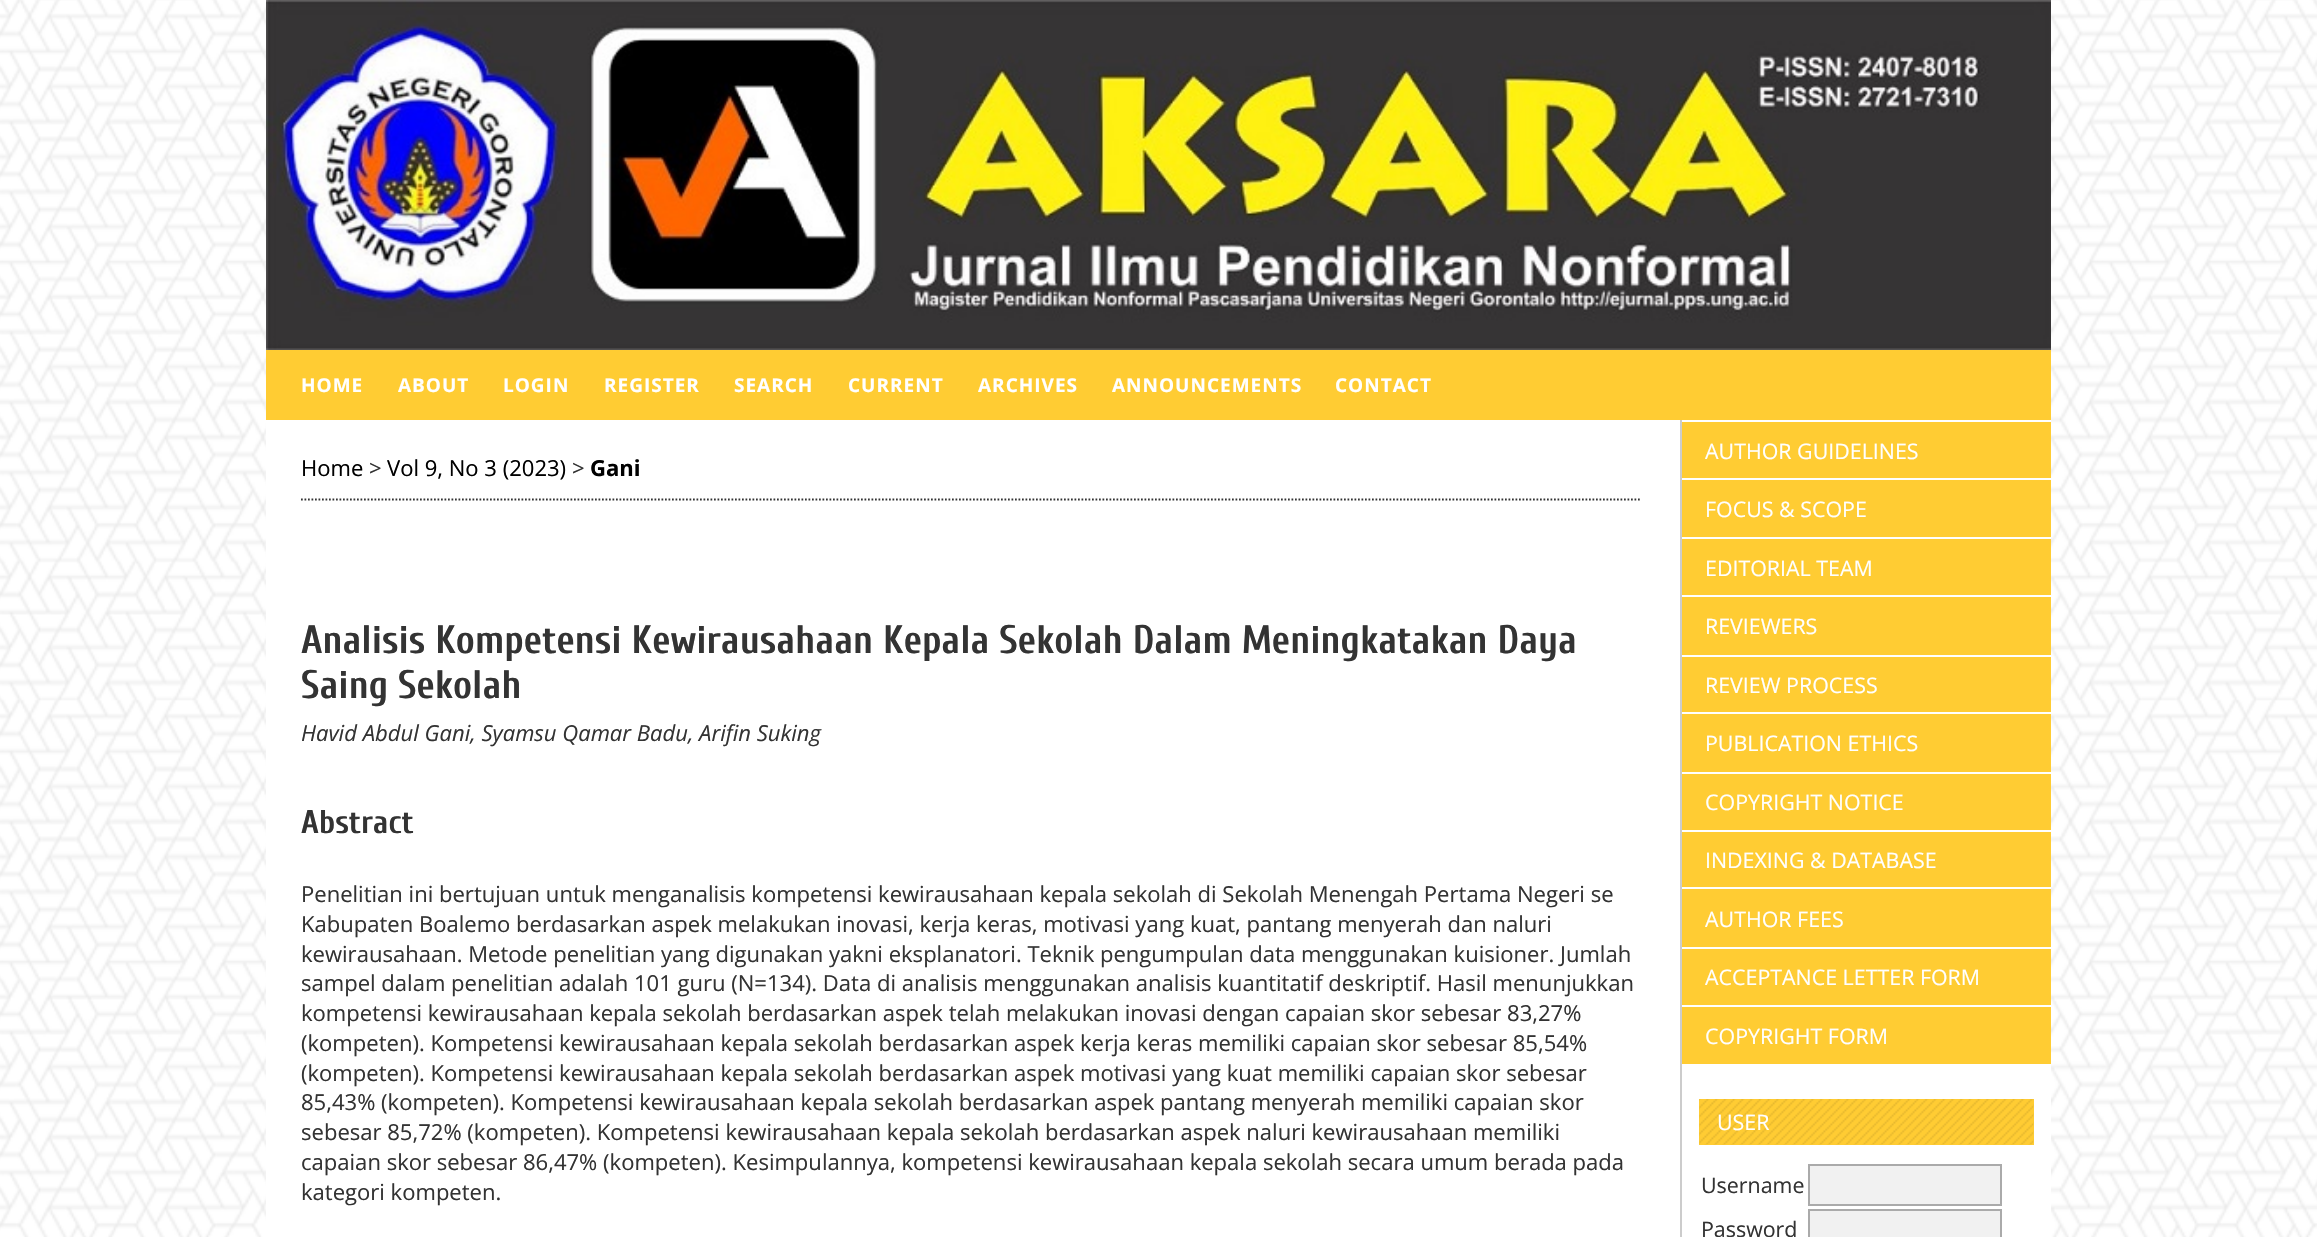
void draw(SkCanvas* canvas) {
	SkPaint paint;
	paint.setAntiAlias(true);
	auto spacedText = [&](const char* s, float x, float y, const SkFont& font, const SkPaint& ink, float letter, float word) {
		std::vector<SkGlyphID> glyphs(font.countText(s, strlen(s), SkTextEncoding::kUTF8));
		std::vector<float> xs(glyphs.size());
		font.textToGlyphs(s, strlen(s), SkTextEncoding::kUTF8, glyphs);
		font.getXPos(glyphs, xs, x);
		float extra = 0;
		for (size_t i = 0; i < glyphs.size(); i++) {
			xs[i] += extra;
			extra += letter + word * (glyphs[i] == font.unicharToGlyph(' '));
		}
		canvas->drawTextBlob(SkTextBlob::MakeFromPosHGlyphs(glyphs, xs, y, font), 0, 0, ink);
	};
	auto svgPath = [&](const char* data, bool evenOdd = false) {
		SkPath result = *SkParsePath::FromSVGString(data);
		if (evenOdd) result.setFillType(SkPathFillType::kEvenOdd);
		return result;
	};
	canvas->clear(0xffffffff);
	canvas->drawImageRect(SkImages::DeferredFromEncodedData(SkData::MakeFromFileName("img1.png")), SkRect::MakeXYWH(0, 0, 2317, 1237), SkSamplingOptions());
	canvas->drawImageRect(SkImages::DeferredFromEncodedData(SkData::MakeFromFileName("img2.png")), SkRect::MakeXYWH(266, 0, 1785, 350), SkSamplingOptions());
	paint.setColor(0xffffffff);
	canvas->drawRect(SkRect::MakeXYWH(266, 420, 1785, 817), paint);
	paint.setColor(0xffffcc33);
	canvas->drawRect(SkRect::MakeXYWH(266, 350, 1785, 70), paint);
	SkFont f1(fontMgr->matchFamilyStyle("Open Sans", SkFontStyle::Bold()), 19);
	f1.setSubpixel(true);
	paint.setColor(0xffffffff);
	spacedText("HOME", 301, 392, f1, paint, 1, 0);
	spacedText("ABOUT", 398, 392, f1, paint, 1, 0);
	spacedText("LOGIN", 503, 392, f1, paint, 1, 0);
	spacedText("REGISTER", 604, 392, f1, paint, 1, 0);
	spacedText("SEARCH", 734, 392, f1, paint, 1, 0);
	spacedText("CURRENT", 848, 392, f1, paint, 1, 0);
	spacedText("ARCHIVES", 978, 392, f1, paint, 1, 0);
	spacedText("ANNOUNCEMENTS", 1112, 392, f1, paint, 1, 0);
	spacedText("CONTACT", 1335, 392, f1, paint, 1, 0);
	paint.setStroke(true);
	paint.setStrokeWidth(1.8);
	paint.setColor(0xff333333);
	paint.setPathEffect(SkDashPathEffect::Make({{1.75f, 1.75f}}, 0));
	canvas->drawPath(svgPath("M301 499.5H1640"), paint);
	paint.setPathEffect(nullptr);
	SkFont f2(fontMgr->matchFamilyStyle("Open Sans", SkFontStyle::Normal()), 22.05);
	f2.setSubpixel(true);
	paint.setStroke(false);
	paint.setColor(0xff000000);
	canvas->drawString("Home", 301, 476, f2, paint);
	paint.setColor(0xff333333);
	canvas->drawString(">", 369, 476, f2, paint);
	paint.setColor(0xff000000);
	canvas->drawString("Vol 9, No 3 (2023)", 387, 476, f2, paint);
	paint.setColor(0xff333333);
	canvas->drawString(">", 572, 476, f2, paint);
	SkFont f3(fontMgr->matchFamilyStyle("Open Sans", SkFontStyle::Bold()), 22.05);
	f3.setSubpixel(true);
	paint.setColor(0xff000000);
	canvas->drawString("Gani", 590, 476, f3, paint);
	SkFont f4(fontMgr->matchFamilyStyle("Cuprum", SkFontStyle::Bold()), 39.7);
	f4.setSubpixel(true);
	paint.setColor(0xff333333);
	canvas->drawString("Analisis Kompetensi Kewirausahaan Kepala Sekolah Dalam Meningkatakan Daya", 301, 653, f4, paint);
	canvas->drawString("Saing Sekolah", 301, 698, f4, paint);
	SkFont f5(fontMgr->matchFamilyStyle("Open Sans", SkFontStyle::Italic()), 22.05);
	f5.setSubpixel(true);
	canvas->drawString("Havid Abdul Gani, Syamsu Qamar Badu, Arifin Suking", 301, 741, f5, paint);
	SkFont f6(fontMgr->matchFamilyStyle("Cuprum", SkFontStyle::Bold()), 33);
	f6.setSubpixel(true);
	canvas->drawString("Abstract", 301, 833, f6, paint);
	canvas->drawString("Penelitian ini bertujuan untuk menganalisis kompetensi kewirausahaan kepala sekolah di Sekolah Menengah Pertama Negeri se", 301, 902, f2, paint);
	canvas->drawString("Kabupaten Boalemo berdasarkan aspek melakukan inovasi, kerja keras, motivasi yang kuat, pantang menyerah dan naluri", 301, 932, f2, paint);
	canvas->drawString("kewirausahaan. Metode penelitian yang digunakan yakni eksplanatori. Teknik pengumpulan data menggunakan kuisioner. Jumlah", 301, 962, f2, paint);
	canvas->drawString("sampel dalam penelitian adalah 101 guru (N=134). Data di analisis menggunakan analisis kuantitatif deskriptif. Hasil menunjukkan", 301, 991, f2, paint);
	canvas->drawString("kompetensi kewirausahaan kepala sekolah berdasarkan aspek telah melakukan inovasi dengan capaian skor sebesar 83,27%", 301, 1021, f2, paint);
	canvas->drawString("(kompeten). Kompetensi kewirausahaan kepala sekolah berdasarkan aspek kerja keras memiliki capaian skor sebesar 85,54%", 301, 1051, f2, paint);
	canvas->drawString("(kompeten). Kompetensi kewirausahaan kepala sekolah berdasarkan aspek motivasi yang kuat memiliki capaian skor sebesar", 301, 1081, f2, paint);
	canvas->drawString("85,43% (kompeten). Kompetensi kewirausahaan kepala sekolah berdasarkan aspek pantang menyerah memiliki capaian skor", 301, 1110, f2, paint);
	canvas->drawString("sebesar 85,72% (kompeten). Kompetensi kewirausahaan kepala sekolah berdasarkan aspek naluri kewirausahaan memiliki", 301, 1140, f2, paint);
	canvas->drawString("capaian skor sebesar 86,47% (kompeten). Kesimpulannya, kompetensi kewirausahaan kepala sekolah secara umum berada pada", 301, 1170, f2, paint);
	canvas->drawString("kategori kompeten.", 301, 1200, f2, paint);
	paint.setColor(0xffcccccc);
	canvas->drawRect(SkRect::MakeXYWH(1680, 420, 2, 817), paint);
	paint.setColor(0xffffcc33);
	canvas->drawRect(SkRect::MakeXYWH(1682, 422, 369, 56), paint);
	SkFont f7(fontMgr->matchFamilyStyle("Open Sans", SkFontStyle::Normal()), 21.4);
	f7.setSubpixel(true);
	paint.setColor(0xffffffff);
	canvas->drawString("AUTHOR GUIDELINES", 1705, 459, f7, paint);
	paint.setColor(0xffffcc33);
	canvas->drawRect(SkRect::MakeXYWH(1682, 480, 369, 57), paint);
	paint.setColor(0xffffffff);
	canvas->drawString("FOCUS & SCOPE", 1705, 517, f7, paint);
	paint.setColor(0xffffcc33);
	canvas->drawRect(SkRect::MakeXYWH(1682, 539, 369, 56), paint);
	paint.setColor(0xffffffff);
	canvas->drawString("EDITORIAL TEAM", 1705, 576, f7, paint);
	paint.setColor(0xffffcc33);
	canvas->drawRect(SkRect::MakeXYWH(1682, 597, 369, 58), paint);
	paint.setColor(0xffffffff);
	canvas->drawString("REVIEWERS", 1705, 634, f7, paint);
	paint.setColor(0xffffcc33);
	canvas->drawRect(SkRect::MakeXYWH(1682, 657, 369, 55), paint);
	paint.setColor(0xffffffff);
	canvas->drawString("REVIEW PROCESS", 1705, 693, f7, paint);
	paint.setColor(0xffffcc33);
	canvas->drawRect(SkRect::MakeXYWH(1682, 714, 369, 58), paint);
	paint.setColor(0xffffffff);
	canvas->drawString("PUBLICATION ETHICS", 1705, 751, f7, paint);
	paint.setColor(0xffffcc33);
	canvas->drawRect(SkRect::MakeXYWH(1682, 774, 369, 56), paint);
	paint.setColor(0xffffffff);
	canvas->drawString("COPYRIGHT NOTICE", 1705, 810, f7, paint);
	paint.setColor(0xffffcc33);
	canvas->drawRect(SkRect::MakeXYWH(1682, 832, 369, 55), paint);
	paint.setColor(0xffffffff);
	canvas->drawString("INDEXING & DATABASE", 1705, 868, f7, paint);
	paint.setColor(0xffffcc33);
	canvas->drawRect(SkRect::MakeXYWH(1682, 889, 369, 58), paint);
	paint.setColor(0xffffffff);
	canvas->drawString("AUTHOR FEES", 1705, 927, f7, paint);
	paint.setColor(0xffffcc33);
	canvas->drawRect(SkRect::MakeXYWH(1682, 949, 369, 56), paint);
	paint.setColor(0xffffffff);
	canvas->drawString("ACCEPTANCE LETTER FORM", 1705, 985, f7, paint);
	paint.setColor(0xffffcc33);
	canvas->drawRect(SkRect::MakeXYWH(1682, 1007, 369, 57), paint);
	paint.setColor(0xffffffff);
	canvas->drawString("COPYRIGHT FORM", 1705, 1044, f7, paint);
	paint.setColor(0xffffcc33);
	canvas->drawRect(SkRect::MakeXYWH(1699, 1099, 335, 46), paint);
	canvas->drawImageRect(SkImages::DeferredFromEncodedData(SkData::MakeFromFileName("img3.png")), SkRect::MakeXYWH(1699, 1099, 335, 46), SkSamplingOptions());
	paint.setColor(0xffffffff);
	canvas->drawString("USER", 1717, 1130, f7, paint);
	paint.setColor(0xff333333);
	canvas->drawString("Username", 1701, 1193, f7, paint);
	paint.setColor(0xfff1f1f1);
	canvas->drawRect(SkRect::MakeXYWH(1809, 1165, 192, 40), paint);
	paint.setStroke(true);
	paint.setStrokeWidth(2);
	paint.setColor(0xffaaaaaa);
	canvas->drawRect(SkRect::MakeXYWH(1809, 1165, 192, 40), paint);
	paint.setStroke(false);
	paint.setColor(0xff333333);
	canvas->drawString("Password", 1701, 1237, f7, paint);
	paint.setColor(0xfff1f1f1);
	canvas->drawRect(SkRect::MakeXYWH(1809, 1210, 192, 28), paint);
	paint.setStroke(true);
	paint.setColor(0xffaaaaaa);
	canvas->drawRect(SkRect::MakeXYWH(1809, 1210, 192, 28), paint);
}
